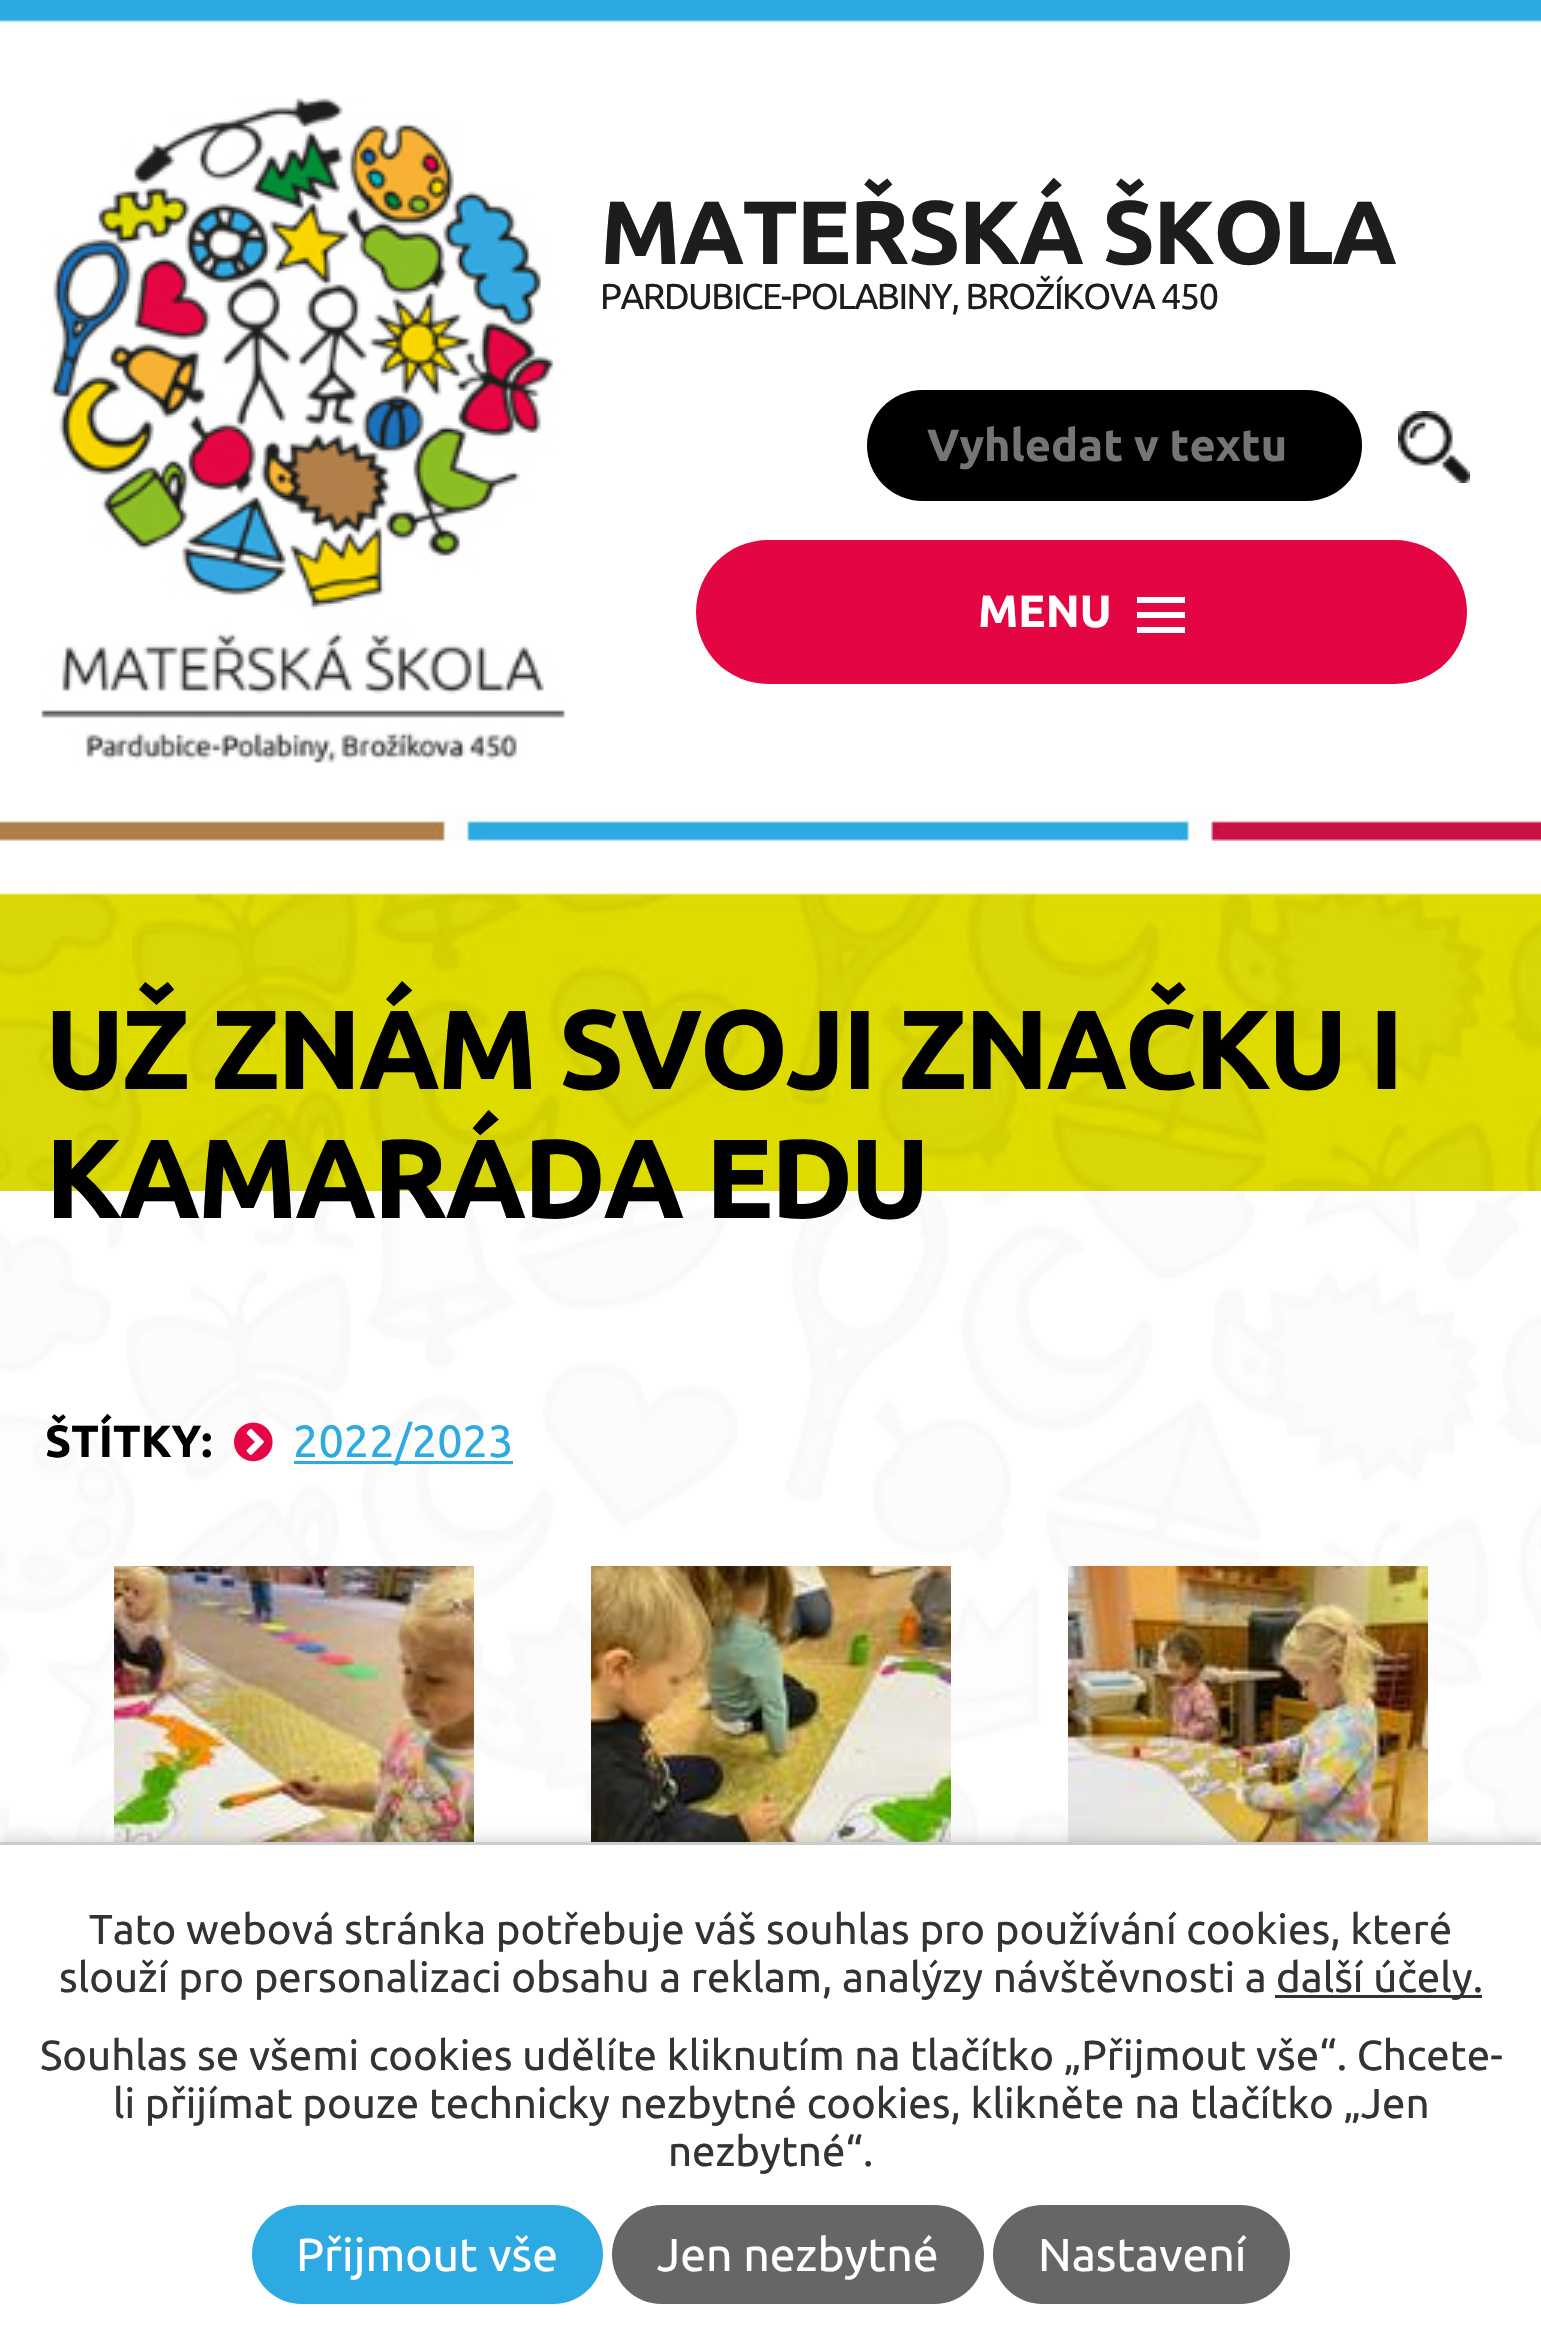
void draw(SkCanvas* canvas) {
	SkPaint paint;
	paint.setAntiAlias(true);
	auto spacedText = [&](const char* s, float x, float y, const SkFont& font, const SkPaint& ink, float letter, float word) {
		std::vector<SkGlyphID> glyphs(font.countText(s, strlen(s), SkTextEncoding::kUTF8));
		std::vector<float> xs(glyphs.size());
		font.textToGlyphs(s, strlen(s), SkTextEncoding::kUTF8, glyphs);
		font.getXPos(glyphs, xs, x);
		float extra = 0;
		for (size_t i = 0; i < glyphs.size(); i++) {
			xs[i] += extra;
			extra += letter + word * (glyphs[i] == font.unicharToGlyph(' '));
		}
		canvas->drawTextBlob(SkTextBlob::MakeFromPosHGlyphs(glyphs, xs, y, font), 0, 0, ink);
	};
	auto svgPath = [&](const char* data, bool evenOdd = false) {
		SkPath result = *SkParsePath::FromSVGString(data);
		if (evenOdd) result.setFillType(SkPathFillType::kEvenOdd);
		return result;
	};
	canvas->clear(0xffffffff);
	canvas->drawImageRect(SkImages::DeferredFromEncodedData(SkData::MakeFromFileName("img1.png")), SkRect::MakeXYWH(0, 1191, 1541, 651), SkSamplingOptions());
	canvas->drawImageRect(SkImages::DeferredFromEncodedData(SkData::MakeFromFileName("img2.png")), SkRect::MakeXYWH(0, 0, 1541, 1191), SkSamplingOptions());
	canvas->drawImageRect(SkImages::DeferredFromEncodedData(SkData::MakeFromFileName("img3.png")), SkRect::MakeXYWH(41, 98, 524, 665), SkSamplingOptions());
	SkFont f1(fontMgr->matchFamilyStyle("Ubuntu", SkFontStyle::Bold()), 90);
	f1.setSubpixel(true);
	paint.setColor(0xff1d1d1b);
	spacedText("MATEŘSKÁ ŠKOLA", 600, 264, f1, paint, -1.5, 0);
	SkFont f2(fontMgr->matchFamilyStyle("Ubuntu", SkFontStyle::Normal()), 36);
	f2.setSubpixel(true);
	spacedText("PARDUBICE-POLABINY, BROŽÍKOVA 450", 600, 309, f2, paint, -1.5, 0);
	paint.setColor(0xff000000);
	canvas->drawRoundRect(SkRect::MakeXYWH(867, 390, 495, 111), 55.5, 55.5, paint);
	SkFont f3(fontMgr->matchFamilyStyle("Ubuntu", SkFontStyle::Bold()), 45);
	f3.setSubpixel(true);
	paint.setColor(0xff757575);
	canvas->drawString("Vyhledat v textu", 927, 461, f3, paint);
	canvas->drawImageRect(SkImages::DeferredFromEncodedData(SkData::MakeFromFileName("img4.png")), SkRect::MakeXYWH(1398, 411, 72, 72), SkSamplingOptions());
	paint.setColor(0xffe40643);
	canvas->drawRoundRect(SkRect::MakeXYWH(696, 540, 771, 144), 72, 72, paint);
	paint.setColor(0xffffffff);
	canvas->drawString("MENU", 978, 627, f3, paint);
	canvas->drawPath(svgPath("M1137 633V627H1185V633ZM1137 597H1185V603H1137ZM1137 618V612H1185V618Z"), paint);
	SkFont f4(fontMgr->matchFamilyStyle("Ubuntu", SkFontStyle::Bold()), 112.5);
	f4.setSubpixel(true);
	paint.setColor(0xff010101);
	spacedText("UŽ ZNÁM SVOJI ZNAČKU I", 45, 1089, f4, paint, -3, 0);
	spacedText("KAMARÁDA EDU", 45, 1218, f4, paint, -3, 0);
	canvas->drawString("ŠTÍTKY:", 45, 1457, f3, paint);
	canvas->drawImageRect(SkImages::DeferredFromEncodedData(SkData::MakeFromFileName("img5.png")), SkRect::MakeXYWH(234, 1422, 39, 40), SkSamplingOptions());
	paint.setColor(0xff2daae1);
	canvas->drawRect(SkRect::MakeXYWH(294, 1461, 219, 3), paint);
	SkFont f5(fontMgr->matchFamilyStyle("Ubuntu", SkFontStyle::Normal()), 45);
	f5.setSubpixel(true);
	canvas->drawString("2022/2023", 293, 1457, f5, paint);
	canvas->drawImageRect(SkImages::DeferredFromEncodedData(SkData::MakeFromFileName("img6.png")), SkRect::MakeXYWH(114, 1566, 360, 276), SkSamplingOptions());
	canvas->drawImageRect(SkImages::DeferredFromEncodedData(SkData::MakeFromFileName("img7.png")), SkRect::MakeXYWH(591, 1566, 360, 276), SkSamplingOptions());
	canvas->drawImageRect(SkImages::DeferredFromEncodedData(SkData::MakeFromFileName("img8.png")), SkRect::MakeXYWH(1068, 1566, 360, 276), SkSamplingOptions());
	paint.setColor(0x33000000);
	paint.setMaskFilter(SkMaskFilter::MakeBlur(kNormal_SkBlurStyle, 7.5));
	canvas->drawRect(SkRect::MakeXYWH(0, 1842, 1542, 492), paint);
	paint.setMaskFilter(nullptr);
	paint.setColor(0xffffffff);
	canvas->drawRect(SkRect::MakeXYWH(0, 1845, 1541, 487), paint);
	paint.setColor(0xffcccccc);
	canvas->drawRect(SkRect::MakeXYWH(0, 1842, 1541, 3), paint);
	SkFont f6(fontMgr->matchFamilyStyle("Ubuntu", SkFontStyle::Normal()), 42);
	f6.setSubpixel(true);
	paint.setColor(0xff333333);
	canvas->drawString("Tato webová stránka potřebuje váš souhlas pro používání cookies, které", 89, 1944, f6, paint);
	canvas->drawString("slouží pro personalizaci obsahu a reklam, analýzy návštěvnosti a", 59, 1992, f6, paint);
	canvas->drawRect(SkRect::MakeXYWH(1275, 1995, 207, 3), paint);
	canvas->drawString("další účely.", 1276, 1992, f6, paint);
	canvas->drawString("Souhlas se všemi cookies udělíte kliknutím na tlačítko „Přijmout vše“. Chcete-", 40, 2070, f6, paint);
	canvas->drawString("li přijímat pouze technicky nezbytné cookies, klikněte na tlačítko „Jen", 113, 2118, f6, paint);
	canvas->drawString("nezbytné“.", 668, 2166, f6, paint);
	paint.setColor(0xff2daae1);
	canvas->drawRoundRect(SkRect::MakeXYWH(252, 2205, 351, 99), 49.5, 49.5, paint);
	SkFont f7(fontMgr->matchFamilyStyle("Ubuntu", SkFontStyle::Normal()), 46.25);
	f7.setSubpixel(true);
	paint.setColor(0xffffffff);
	canvas->drawString("Přijmout vše", 296, 2271, f7, paint);
	paint.setColor(0xff666666);
	canvas->drawRoundRect(SkRect::MakeXYWH(612, 2205, 372, 99), 49.5, 49.5, paint);
	paint.setColor(0xffffffff);
	canvas->drawString("Jen nezbytné", 657, 2271, f7, paint);
	paint.setColor(0xff666666);
	canvas->drawRoundRect(SkRect::MakeXYWH(993, 2205, 297, 99), 49.5, 49.5, paint);
	paint.setColor(0xffffffff);
	canvas->drawString("Nastavení", 1038, 2271, f7, paint);
}
